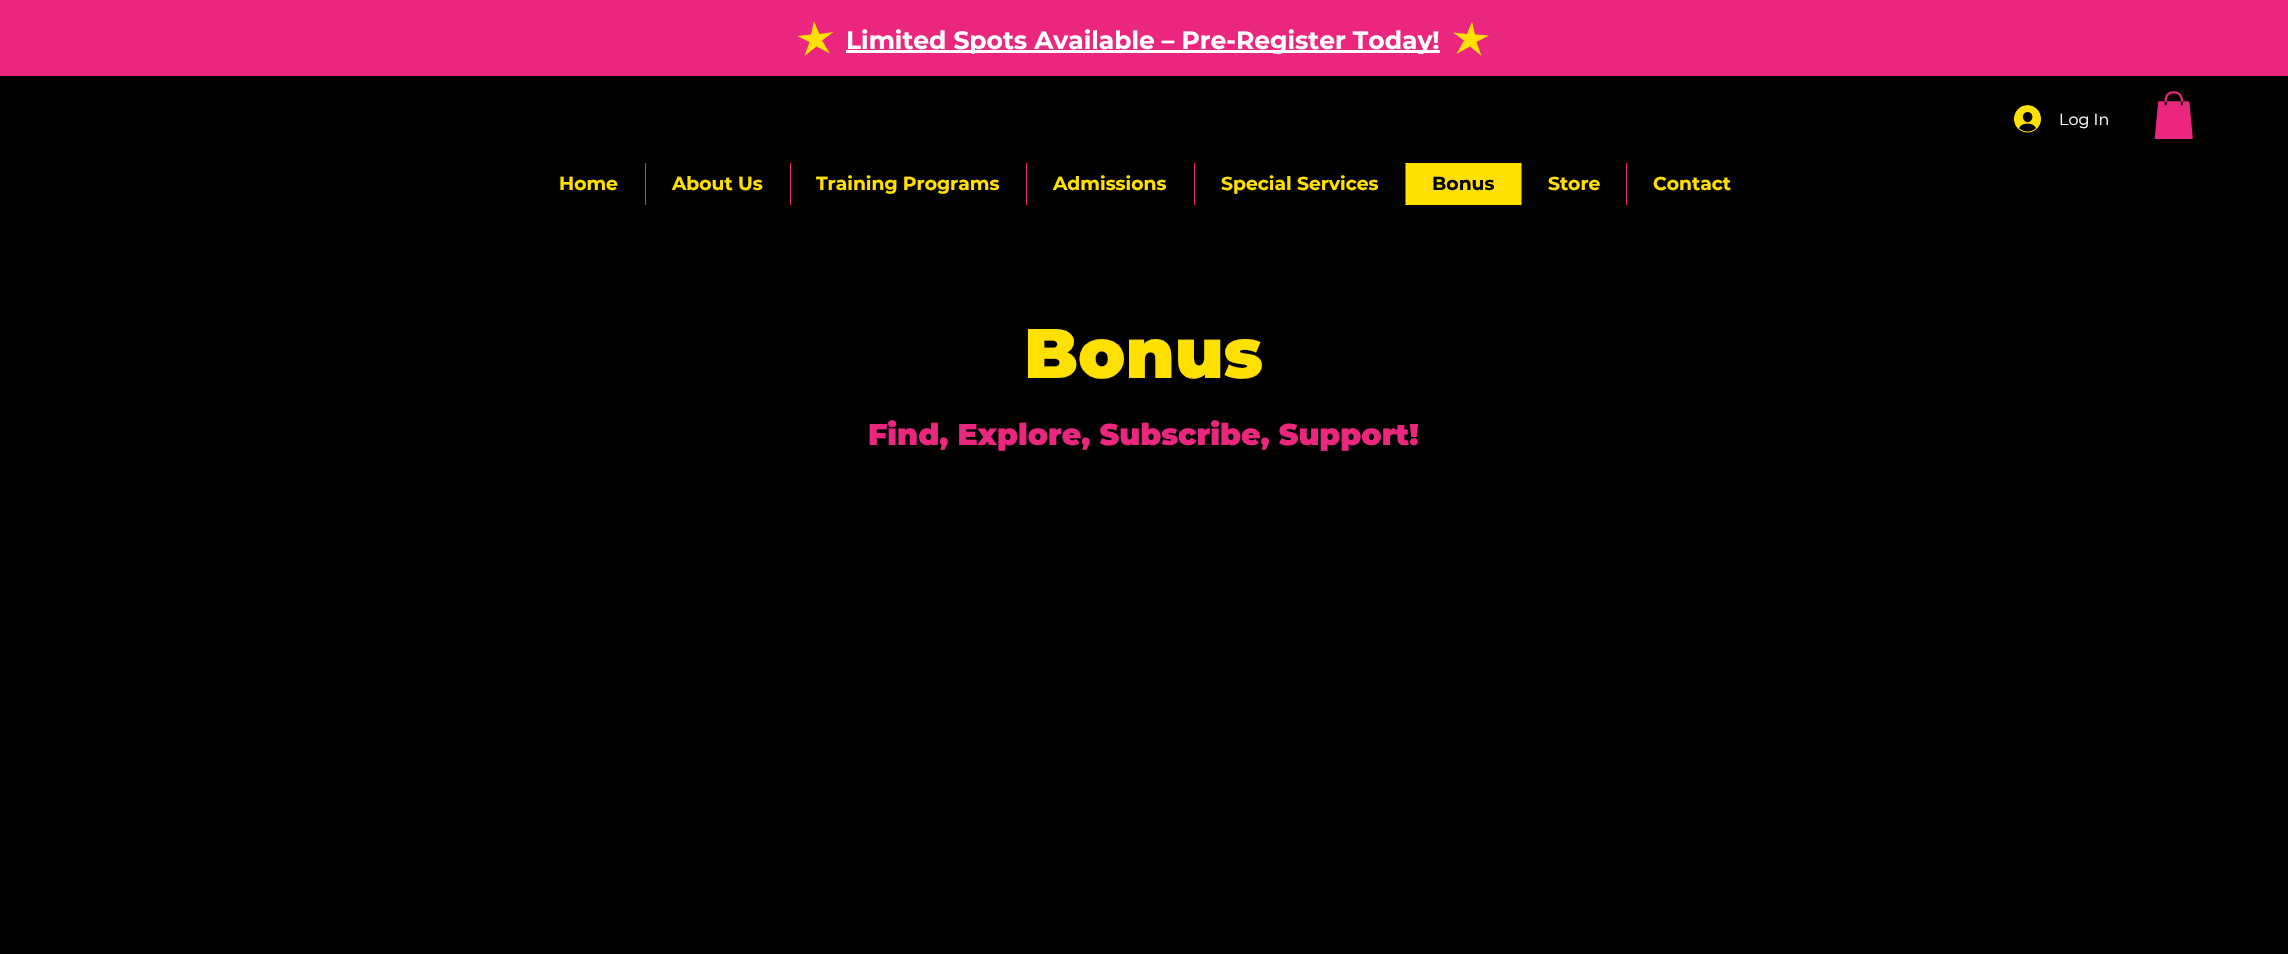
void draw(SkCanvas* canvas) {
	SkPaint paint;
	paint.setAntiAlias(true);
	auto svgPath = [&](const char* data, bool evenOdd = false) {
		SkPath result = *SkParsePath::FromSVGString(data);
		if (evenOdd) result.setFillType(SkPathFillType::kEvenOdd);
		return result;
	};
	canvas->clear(0xff000000);
	paint.setColor(0xffea267f);
	canvas->drawRect(SkRect::MakeXYWH(0, 0, 2288, 76), paint);
	paint.setColor(0xffffe000);
	canvas->drawPath(svgPath("M814 21.5L811 34.5L797 36L809.5 42L804.5 56L816.5 46.5L830 53.5L822 40.5L833.5 32L819.5 34Z"), paint);
	paint.setColor(0xffffffff);
	canvas->drawRect(SkRect::MakeXYWH(846, 50, 594, 3), paint);
	SkFont f1(fontMgr->matchFamilyStyle("Montserrat", SkFontStyle::Bold()), 25);
	f1.setSubpixel(true);
	canvas->drawString("Limited Spots Available – Pre-Register Today!", 846, 49, f1, paint);
	paint.setColor(0xffffe000);
	canvas->drawPath(svgPath("M1472 21.5L1467 34L1453 32.5L1464 40.5L1456.5 54L1470 46.5L1481.5 56L1476.5 42L1489 35.5L1475 34.5Z"), paint);
	canvas->drawImageRect(SkImages::DeferredFromEncodedData(SkData::MakeFromFileName("img1.png")), SkRect::MakeXYWH(2014, 105, 27, 28), SkSamplingOptions());
	SkFont f2(fontMgr->matchFamilyStyle("Montserrat", SkFontStyle::Normal()), 16);
	f2.setSubpixel(true);
	paint.setColor(0xffffffff);
	canvas->drawString("Log In", 2059, 125, f2, paint);
	canvas->drawImageRect(SkImages::DeferredFromEncodedData(SkData::MakeFromFileName("img2.png")), SkRect::MakeXYWH(2154, 91, 39, 49), SkSamplingOptions());
	SkFont f3(fontMgr->matchFamilyStyle("Montserrat", SkFontStyle::Bold()), 18.75);
	f3.setSubpixel(true);
	paint.setColor(0xffffe000);
	canvas->drawString("Home", 559, 190, f3, paint);
	paint.setColor(0xffea267f);
	canvas->drawRect(SkRect::MakeXYWH(645, 163, 1, 42), paint);
	paint.setColor(0xffffe000);
	canvas->drawString("About Us", 672, 190, f3, paint);
	paint.setColor(0xffea267f);
	canvas->drawRect(SkRect::MakeXYWH(790, 163, 1, 42), paint);
	paint.setColor(0xffffe000);
	canvas->drawString("Training Programs", 816, 190, f3, paint);
	paint.setColor(0xffea267f);
	canvas->drawRect(SkRect::MakeXYWH(1026, 163, 1, 42), paint);
	paint.setColor(0xffffe000);
	canvas->drawString("Admissions", 1053, 190, f3, paint);
	paint.setColor(0xffea267f);
	canvas->drawRect(SkRect::MakeXYWH(1194, 163, 1, 42), paint);
	paint.setColor(0xffffe000);
	canvas->drawString("Special Services", 1221, 190, f3, paint);
	canvas->drawRect(SkRect::MakeXYWH(1406, 163, 115, 42), paint);
	paint.setColor(0xffea267f);
	canvas->drawRect(SkRect::MakeXYWH(1405, 163, 1, 42), paint);
	paint.setColor(0xff000000);
	canvas->drawString("Bonus", 1432, 190, f3, paint);
	paint.setColor(0xffea267f);
	canvas->drawRect(SkRect::MakeXYWH(1521, 163, 1, 42), paint);
	paint.setColor(0xffffe000);
	canvas->drawString("Store", 1548, 190, f3, paint);
	paint.setColor(0xffea267f);
	canvas->drawRect(SkRect::MakeXYWH(1626, 163, 1, 42), paint);
	paint.setColor(0xffffe000);
	canvas->drawString("Contact", 1653, 190, f3, paint);
	SkFont f4(fontMgr->matchFamilyStyle("Montserrat", SkFontStyle(100, SkFontStyle::kNormal_Width, SkFontStyle::kUpright_Slant)), 70);
	f4.setSubpixel(true);
	canvas->drawString("Bonus", 1024, 378, f4, paint);
	SkFont f5(fontMgr->matchFamilyStyle("Montserrat", SkFontStyle(100, SkFontStyle::kNormal_Width, SkFontStyle::kUpright_Slant)), 30);
	f5.setSubpixel(true);
	paint.setColor(0xffea267f);
	canvas->drawString("Find, Explore, Subscribe, Support!", 868, 445, f5, paint);
}
